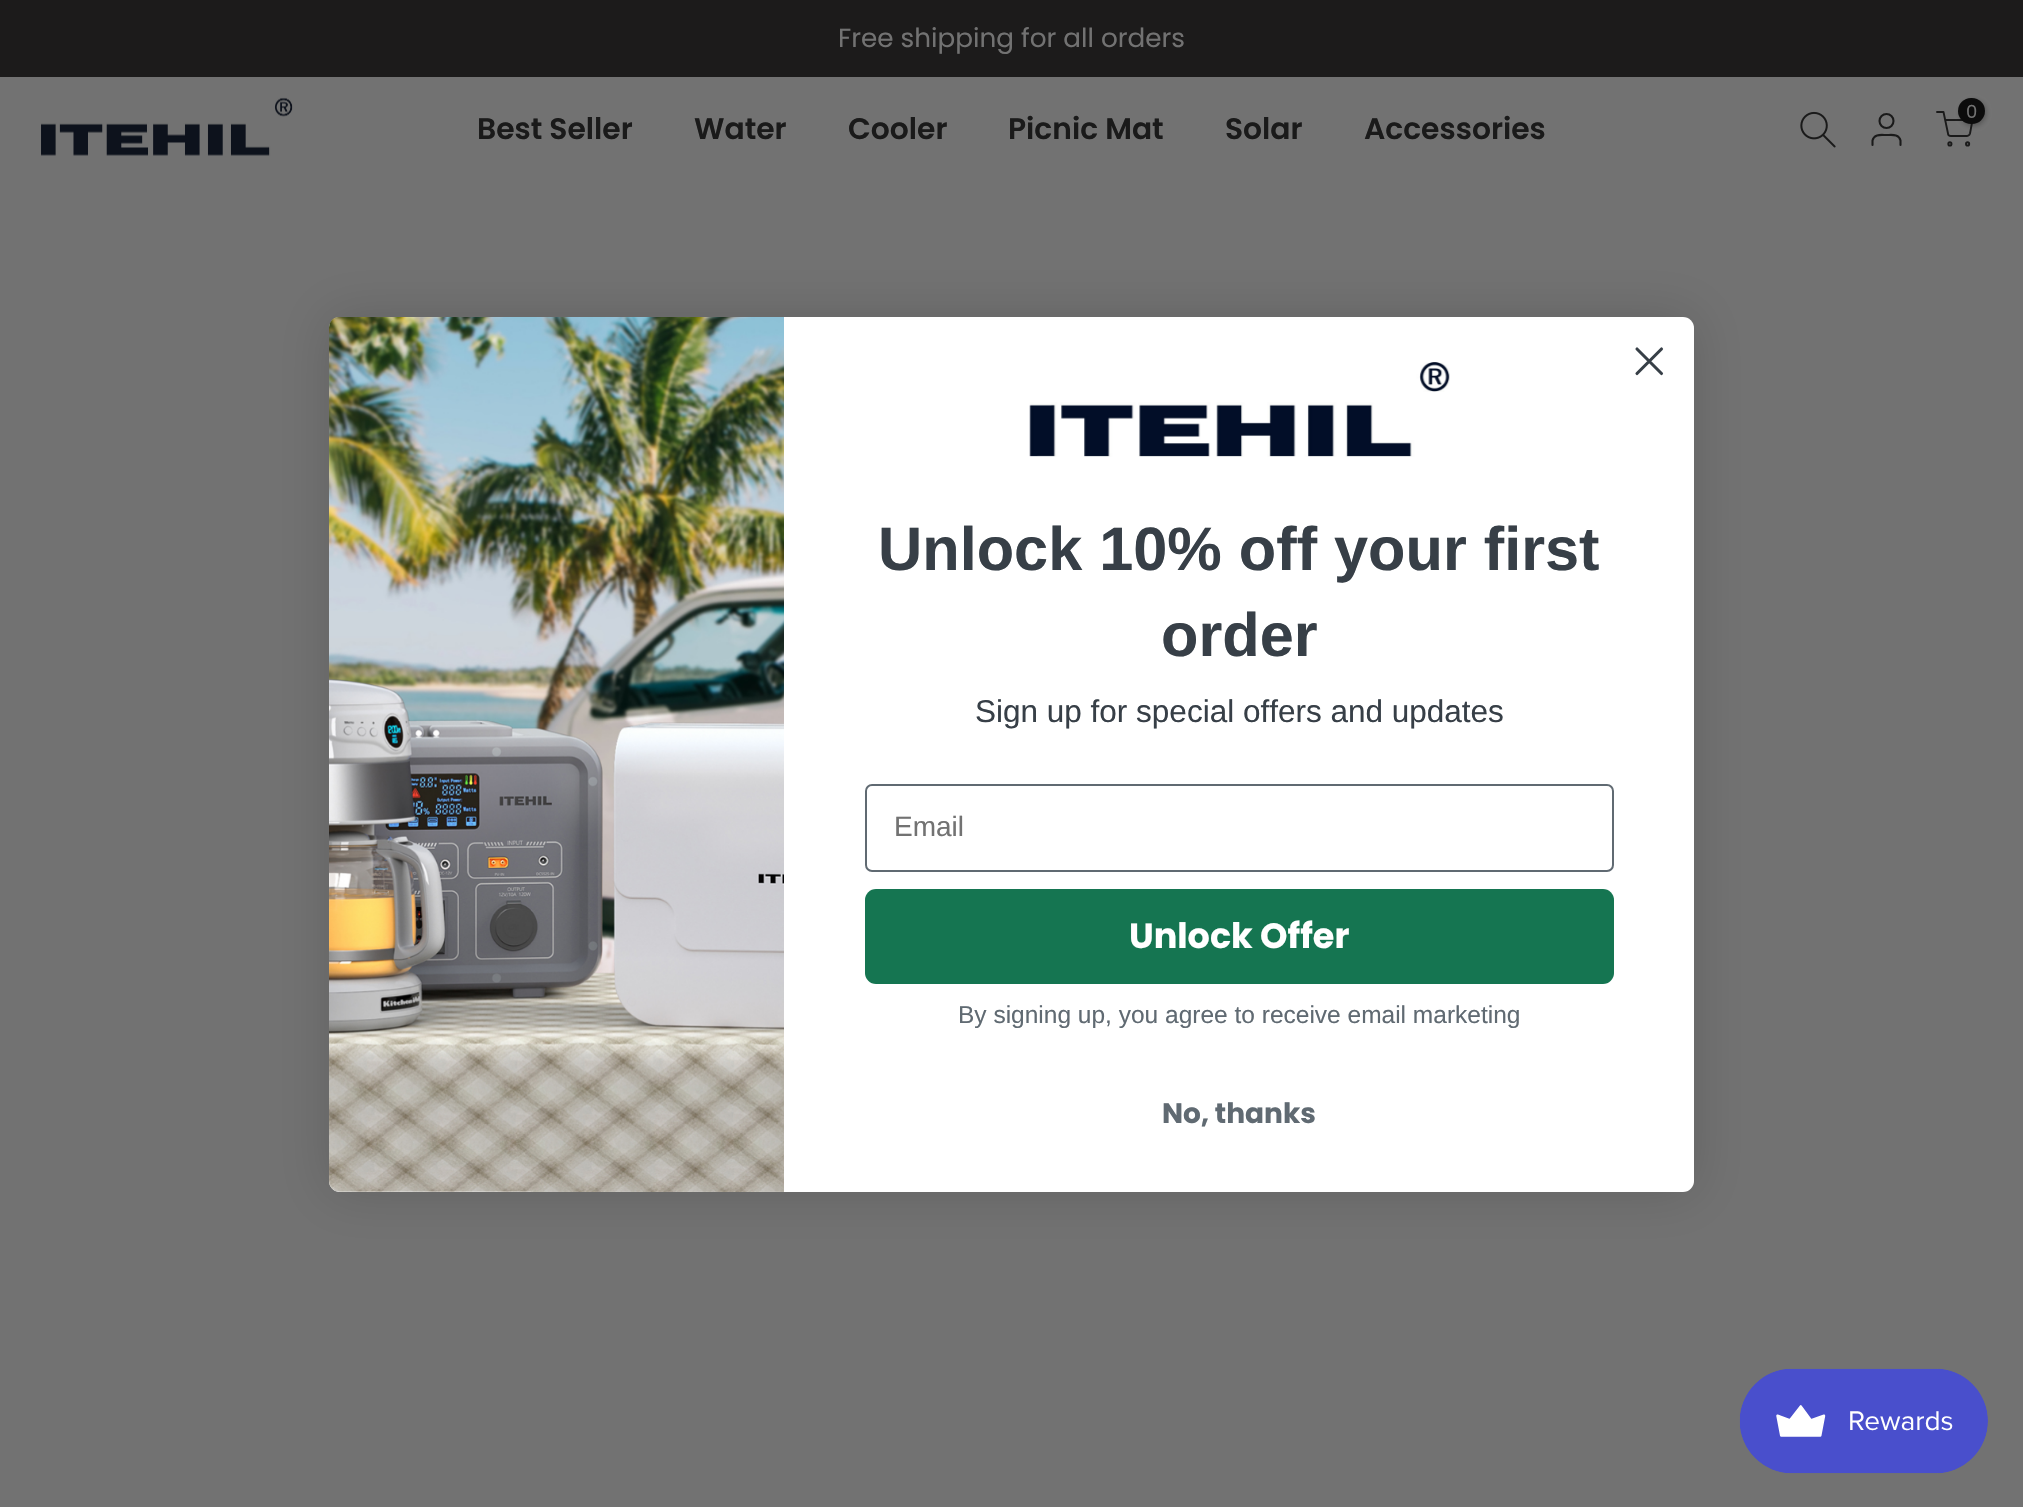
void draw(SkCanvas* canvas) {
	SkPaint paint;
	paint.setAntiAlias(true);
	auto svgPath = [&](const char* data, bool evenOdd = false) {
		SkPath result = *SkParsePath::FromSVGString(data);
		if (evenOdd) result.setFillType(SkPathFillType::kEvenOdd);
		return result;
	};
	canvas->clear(0xff727272);
	paint.setColor(0xff1c1b1b);
	canvas->drawRect(SkRect::MakeXYWH(0, 0, 2023, 77), paint);
	SkFont f1(fontMgr->matchFamilyStyle("Poppins", SkFontStyle::Normal()), 26.25);
	f1.setSubpixel(true);
	paint.setColor(0xff727272);
	canvas->drawString("Free shipping for all orders", 838, 47, f1, paint);
	canvas->drawImageRect(SkImages::DeferredFromEncodedData(SkData::MakeFromFileName("img1.png")), SkRect::MakeXYWH(41, 97, 252, 59), SkSamplingOptions());
	canvas->drawImageRect(SkImages::DeferredFromEncodedData(SkData::MakeFromFileName("img2.png")), SkRect::MakeXYWH(1800, 111, 36, 37), SkSamplingOptions());
	paint.setStroke(true);
	paint.setStrokeWidth(2.1);
	paint.setColor(0xff1a1a1a);
	canvas->drawCircle(1886.5, 121, 7, paint);
	paint.setStrokeCap(SkPaint::kRound_Cap);
	paint.setStrokeJoin(SkPaint::kRound_Join);
	canvas->drawPath(svgPath("M1900.5 145V140.5C1899 133.5 1891.5 135 1886.5 135C1881.5 135 1874 133.5 1872.5 140.5V145"), paint);
	paint.setStrokeWidth(1.9);
	canvas->drawPath(svgPath("M1937 112H1943.5L1948 133.5C1948 135 1949.5 136 1951 136H1966.5C1968 136 1969.5 135 1970 133.5L1972.5 120H1945"), paint);
	paint.setStroke(false);
	paint.setColor(0x4d0c0c0c);
	paint.setMaskFilter(SkMaskFilter::MakeBlur(kNormal_SkBlurStyle, 2.5));
	canvas->drawRoundRect(SkRect::MakeXYWH(1960, 100, 26, 26), 13, 13, paint);
	paint.setMaskFilter(nullptr);
	paint.setColor(0xff0c0c0c);
	canvas->drawRoundRect(SkRect::MakeXYWH(1958, 98, 27, 26), 13, 13, paint);
	SkFont f2(fontMgr->matchFamilyStyle("Poppins", SkFontStyle::Normal()), 18);
	f2.setSubpixel(true);
	paint.setColor(0xff727272);
	canvas->drawString("0", 1966, 118, f2, paint);
	paint.setStroke(true);
	paint.setStrokeCap(SkPaint::kButt_Cap);
	paint.setStrokeJoin(SkPaint::kMiter_Join);
	paint.setColor(0xff1a1a1a);
	canvas->drawCircle(1949.9, 143.9, 1.6, paint);
	canvas->drawCircle(1967.6, 143.9, 1.6, paint);
	SkFont f3(fontMgr->matchFamilyStyle("Poppins", SkFontStyle(600, SkFontStyle::kNormal_Width, SkFontStyle::kUpright_Slant)), 29.75);
	f3.setSubpixel(true);
	paint.setStroke(false);
	canvas->drawString("Best Seller", 477, 139, f3, paint);
	canvas->drawString("Water", 694, 139, f3, paint);
	canvas->drawString("Cooler", 848, 139, f3, paint);
	canvas->drawString("Picnic Mat", 1008, 139, f3, paint);
	canvas->drawString("Solar", 1225, 139, f3, paint);
	canvas->drawString("Accessories", 1364, 139, f3, paint);
	paint.setColor(0x26000000);
	paint.setMaskFilter(SkMaskFilter::MakeBlur(kNormal_SkBlurStyle, 26));
	canvas->drawRoundRect(SkRect::MakeXYWH(329, 317, 1365, 875), 11, 11, paint);
	paint.setMaskFilter(nullptr);
	paint.setColor(0xffffffff);
	canvas->drawRoundRect(SkRect::MakeXYWH(329, 317, 1365, 875), 11, 11, paint);
	paint.setStroke(true);
	paint.setStrokeWidth(3.1);
	paint.setStrokeCap(SkPaint::kRound_Cap);
	paint.setStrokeJoin(SkPaint::kRound_Join);
	paint.setColor(0xff373f47);
	canvas->drawPath(svgPath("M1637 349L1661.5 373.5M1637 373.5L1661.5 349Z"), paint);
	canvas->drawImageRect(SkImages::DeferredFromEncodedData(SkData::MakeFromFileName("img3.png")), SkRect::MakeXYWH(329, 317, 455, 875), SkSamplingOptions());
	canvas->drawImageRect(SkImages::DeferredFromEncodedData(SkData::MakeFromFileName("img4.png")), SkRect::MakeXYWH(1029, 362, 421, 95), SkSamplingOptions());
	SkFont f4(fontMgr->matchFamilyStyle("Liberation Sans", SkFontStyle::Bold()), 61.25);
	f4.setSubpixel(true);
	paint.setStroke(false);
	canvas->drawString("Unlock 10% off your first", 878, 570, f4, paint);
	canvas->drawString("order", 1161, 656, f4, paint);
	SkFont f5(fontMgr->matchFamilyStyle("Liberation Sans", SkFontStyle::Normal()), 31.5);
	f5.setSubpixel(true);
	canvas->drawString("Sign up for special offers and updates", 975, 722, f5, paint);
	paint.setStroke(true);
	paint.setStrokeWidth(2);
	paint.setStrokeCap(SkPaint::kButt_Cap);
	paint.setStrokeJoin(SkPaint::kMiter_Join);
	paint.setColor(0xff606a72);
	canvas->drawRoundRect(SkRect::MakeXYWH(866, 785, 747, 86), 6, 6, paint);
	SkFont f6(fontMgr->matchFamilyStyle("Liberation Sans", SkFontStyle::Normal()), 28);
	f6.setSubpixel(true);
	paint.setStroke(false);
	paint.setColor(0xff727272);
	canvas->drawString("Email", 894, 836, f6, paint);
	paint.setColor(0xff157551);
	canvas->drawRoundRect(SkRect::MakeXYWH(865, 889, 749, 95), 11, 11, paint);
	SkFont f7(fontMgr->matchFamilyStyle("Poppins", SkFontStyle::Bold()), 35);
	f7.setSubpixel(true);
	paint.setColor(0xffffffff);
	canvas->drawString("Unlock Offer", 1129, 948, f7, paint);
	SkFont f8(fontMgr->matchFamilyStyle("Liberation Sans", SkFontStyle::Normal()), 24.5);
	f8.setSubpixel(true);
	paint.setColor(0xff606a72);
	canvas->drawString("By signing up, you agree to receive email marketing", 958, 1023, f8, paint);
	SkFont f9(fontMgr->matchFamilyStyle("Poppins", SkFontStyle::Bold()), 28);
	f9.setSubpixel(true);
	canvas->drawString("No, thanks", 1162, 1123, f9, paint);
	canvas->drawImageRect(SkImages::DeferredFromEncodedData(SkData::MakeFromFileName("img5.png")), SkRect::MakeXYWH(1739, 1368, 249, 106), SkSamplingOptions());
}
